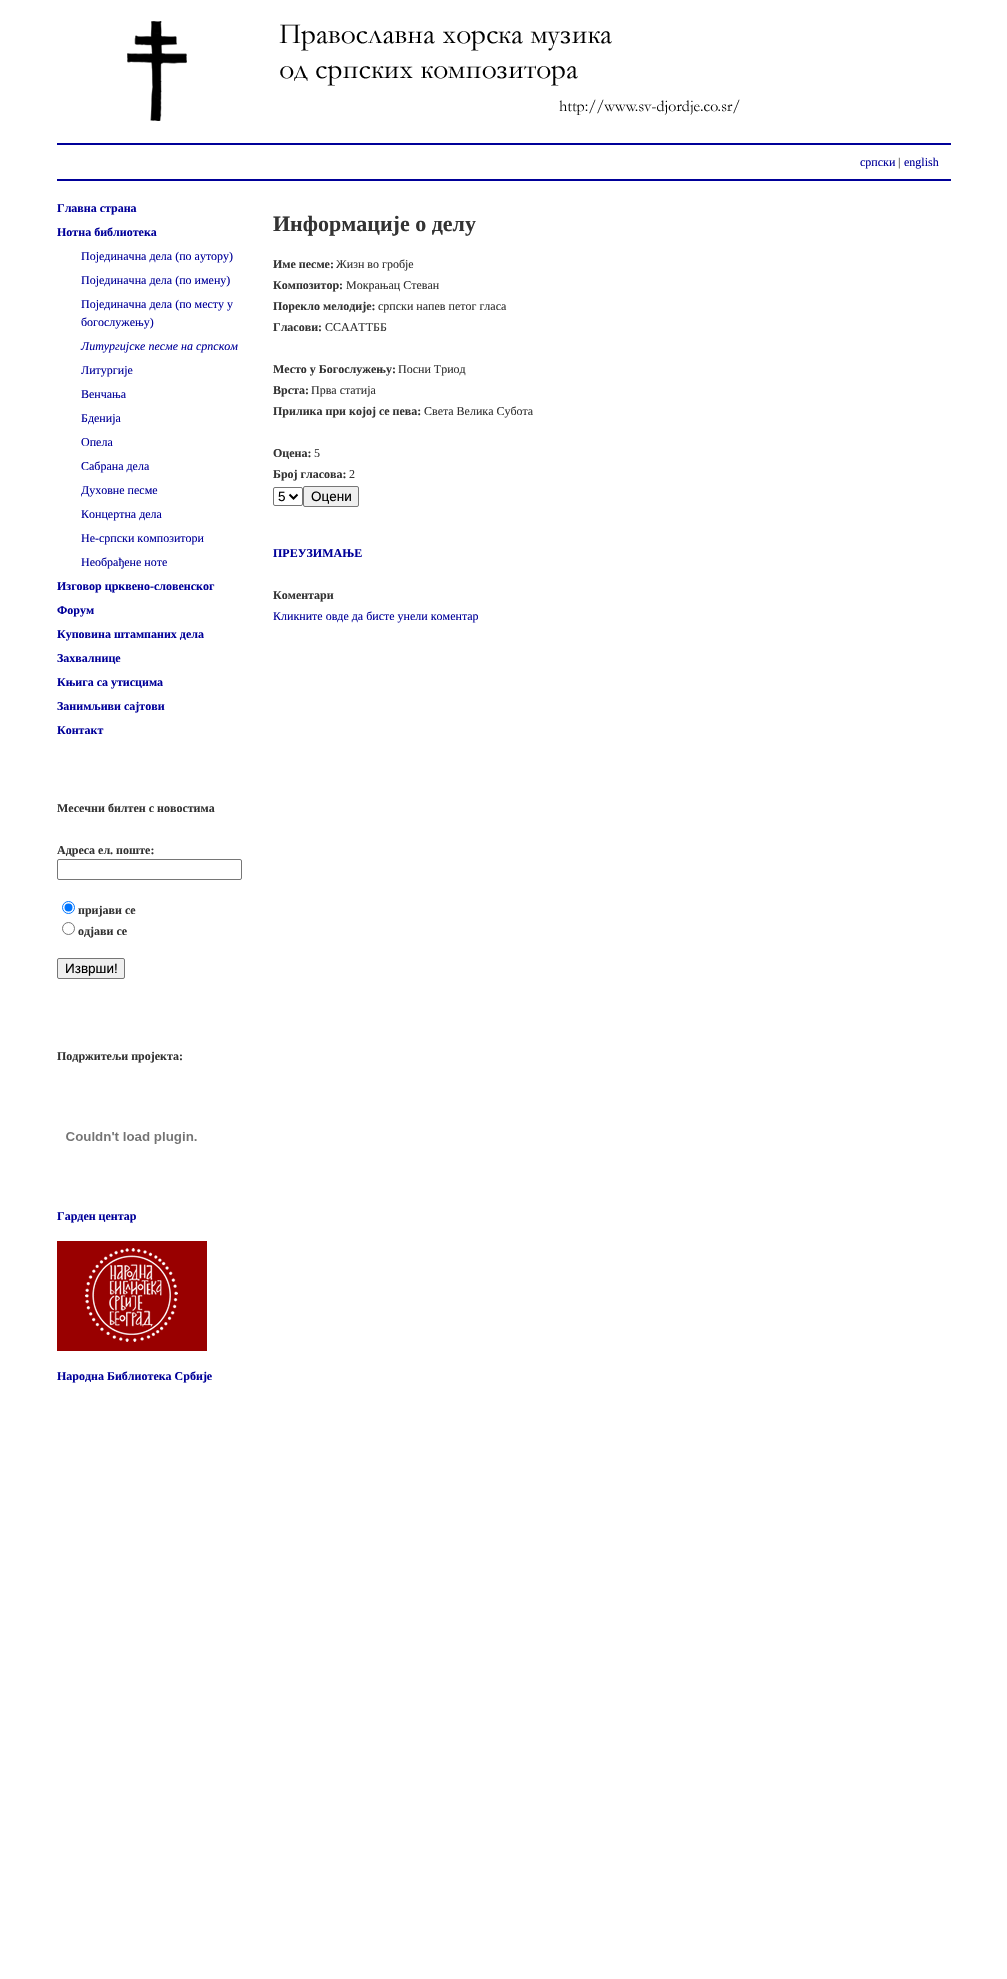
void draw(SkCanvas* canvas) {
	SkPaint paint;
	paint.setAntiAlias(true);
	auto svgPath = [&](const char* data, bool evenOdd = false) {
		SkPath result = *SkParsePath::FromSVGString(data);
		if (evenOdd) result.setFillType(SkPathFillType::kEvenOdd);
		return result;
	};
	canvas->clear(0xffffffff);
	canvas->drawImageRect(SkImages::DeferredFromEncodedData(SkData::MakeFromFileName("img1.png")), SkRect::MakeXYWH(127, 21, 60, 100), SkSamplingOptions());
	canvas->drawImageRect(SkImages::DeferredFromEncodedData(SkData::MakeFromFileName("img2.png")), SkRect::MakeXYWH(279, 24, 461, 91), SkSamplingOptions());
	paint.setColor(0xff000099);
	canvas->drawRect(SkRect::MakeXYWH(57, 143, 894, 2), paint);
	SkFont f1(fontMgr->matchFamilyStyle("Liberation Serif", SkFontStyle::Normal()), 12);
	f1.setSubpixel(true);
	canvas->drawString("српски", 860, 166, f1, paint);
	paint.setColor(0xff333333);
	canvas->drawString("|", 898, 166, f1, paint);
	paint.setColor(0xff000099);
	canvas->drawString("english", 904, 166, f1, paint);
	canvas->drawRect(SkRect::MakeXYWH(57, 179, 894, 2), paint);
	SkFont f2(fontMgr->matchFamilyStyle("Liberation Serif", SkFontStyle::Bold()), 12);
	f2.setSubpixel(true);
	canvas->drawString("Главна страна", 57, 212, f2, paint);
	canvas->drawString("Нотна библиотека", 57, 236, f2, paint);
	canvas->drawString("Појединачна дела (по аутору)", 81, 260, f1, paint);
	canvas->drawString("Појединачна дела (по имену)", 81, 284, f1, paint);
	canvas->drawString("Појединачна дела (по месту у", 81, 308, f1, paint);
	canvas->drawString("богослужењу)", 81, 326, f1, paint);
	SkFont f3(fontMgr->matchFamilyStyle("Liberation Serif", SkFontStyle::Italic()), 12);
	f3.setSubpixel(true);
	canvas->drawString("Литургијске песме на српском", 81, 350, f3, paint);
	canvas->drawString("Литургије", 81, 374, f1, paint);
	canvas->drawString("Венчања", 81, 398, f1, paint);
	canvas->drawString("Бденија", 81, 422, f1, paint);
	canvas->drawString("Опела", 81, 446, f1, paint);
	canvas->drawString("Сабрана дела", 81, 470, f1, paint);
	canvas->drawString("Духовне песме", 81, 494, f1, paint);
	canvas->drawString("Концертна дела", 81, 518, f1, paint);
	canvas->drawString("Не-српски композитори", 81, 542, f1, paint);
	canvas->drawString("Необрађене ноте", 81, 566, f1, paint);
	canvas->drawString("Изговор црквено-словенског", 57, 590, f2, paint);
	canvas->drawString("Форум", 57, 614, f2, paint);
	canvas->drawString("Куповина штампаних дела", 57, 638, f2, paint);
	canvas->drawString("Захвалнице", 57, 662, f2, paint);
	canvas->drawString("Књига са утисцима", 57, 686, f2, paint);
	canvas->drawString("Занимљиви сајтови", 57, 710, f2, paint);
	canvas->drawString("Контакт", 57, 734, f2, paint);
	paint.setColor(0xff333333);
	canvas->drawString("Месечни билтен с новостима", 57, 812, f2, paint);
	canvas->drawString("Адреса ел. поште:", 57, 854, f2, paint);
	paint.setStroke(true);
	paint.setStrokeWidth(1);
	paint.setColor(0xff767676);
	canvas->drawRoundRect(SkRect::MakeXYWH(57.5, 859.5, 184, 20), 1.5, 1.5, paint);
	paint.setColor(0xff0075ff);
	canvas->drawCircle(68.5, 907.5, 6, paint);
	paint.setStroke(false);
	canvas->drawCircle(68.5, 907.5, 4, paint);
	paint.setColor(0xff333333);
	canvas->drawString("пријави се", 78, 914, f2, paint);
	paint.setStroke(true);
	paint.setColor(0xff767676);
	canvas->drawCircle(68.5, 928.5, 6, paint);
	paint.setStroke(false);
	paint.setColor(0xff333333);
	canvas->drawString("одјави се", 78, 935, f2, paint);
	paint.setColor(0xffefefef);
	canvas->drawRoundRect(SkRect::MakeXYWH(57.5, 958.5, 67, 20), 1.5, 1.5, paint);
	paint.setStroke(true);
	paint.setColor(0xff767676);
	canvas->drawRoundRect(SkRect::MakeXYWH(57.5, 958.5, 67, 20), 1.5, 1.5, paint);
	SkFont f4(fontMgr->matchFamilyStyle("Liberation Sans", SkFontStyle::Normal()), 13.5);
	f4.setSubpixel(true);
	paint.setStroke(false);
	paint.setColor(0xff000000);
	canvas->drawString("Изврши!", 65, 973, f4, paint);
	paint.setColor(0xff333333);
	canvas->drawString("Подржитељи пројекта:", 57, 1060, f2, paint);
	canvas->drawImageRect(SkImages::DeferredFromEncodedData(SkData::MakeFromFileName("img3.png")), SkRect::MakeXYWH(66, 1132, 131, 12), SkSamplingOptions());
	paint.setColor(0xff000099);
	canvas->drawString("Гарден центар", 57, 1220, f2, paint);
	canvas->drawImageRect(SkImages::DeferredFromEncodedData(SkData::MakeFromFileName("img4.png")), SkRect::MakeXYWH(57, 1241, 150, 110), SkSamplingOptions());
	canvas->drawString("Народна Библиотека Србије", 57, 1380, f2, paint);
	SkFont f5(fontMgr->matchFamilyStyle("Liberation Serif", SkFontStyle::Bold()), 22);
	f5.setSubpixel(true);
	paint.setColor(0xff333333);
	canvas->drawString("Информације о делу", 273, 231, f5, paint);
	canvas->drawString("Име песме:", 273, 268, f2, paint);
	canvas->drawString("Жизн во гробје", 336, 268, f1, paint);
	canvas->drawString("Композитор:", 273, 289, f2, paint);
	canvas->drawString("Мокрањац Стеван", 346, 289, f1, paint);
	canvas->drawString("Порекло мелодије:", 273, 310, f2, paint);
	canvas->drawString("српски напев петог гласа", 378, 310, f1, paint);
	canvas->drawString("Гласови:", 273, 331, f2, paint);
	canvas->drawString("ССААТТББ", 325, 331, f1, paint);
	canvas->drawString("Место у Богослужењу:", 273, 373, f2, paint);
	canvas->drawString("Посни Триод", 398, 373, f1, paint);
	canvas->drawString("Врста:", 273, 394, f2, paint);
	canvas->drawString("Прва статија", 311, 394, f1, paint);
	canvas->drawString("Прилика при којој се пева:", 273, 415, f2, paint);
	canvas->drawString("Света Велика Субота", 424, 415, f1, paint);
	canvas->drawString("Оцена:", 273, 457, f2, paint);
	canvas->drawString("5", 314, 457, f1, paint);
	canvas->drawString("Број гласова:", 273, 478, f2, paint);
	canvas->drawString("2", 349, 478, f1, paint);
	paint.setStroke(true);
	paint.setColor(0xff767676);
	canvas->drawRoundRect(SkRect::MakeXYWH(273.5, 487.5, 29, 18), 1.5, 1.5, paint);
	paint.setStrokeWidth(2);
	paint.setColor(0xff000000);
	canvas->drawPath(svgPath("M289.5 494.5L293.5 498.5L297.5 494.5"), paint);
	paint.setStroke(false);
	canvas->drawString("5", 278, 501, f4, paint);
	paint.setColor(0xffefefef);
	canvas->drawRoundRect(SkRect::MakeXYWH(303.5, 486.5, 55, 20), 1.5, 1.5, paint);
	paint.setStroke(true);
	paint.setStrokeWidth(1);
	paint.setColor(0xff767676);
	canvas->drawRoundRect(SkRect::MakeXYWH(303.5, 486.5, 55, 20), 1.5, 1.5, paint);
	paint.setStroke(false);
	paint.setColor(0xff000000);
	canvas->drawString("Оцени", 311, 501, f4, paint);
	paint.setColor(0xff000099);
	canvas->drawString("ПРЕУЗИМАЊЕ", 273, 557, f2, paint);
	paint.setColor(0xff333333);
	canvas->drawString("Коментари", 273, 599, f2, paint);
	paint.setColor(0xff000099);
	canvas->drawString("Кликните овде да бисте унели коментар", 273, 620, f1, paint);
}
